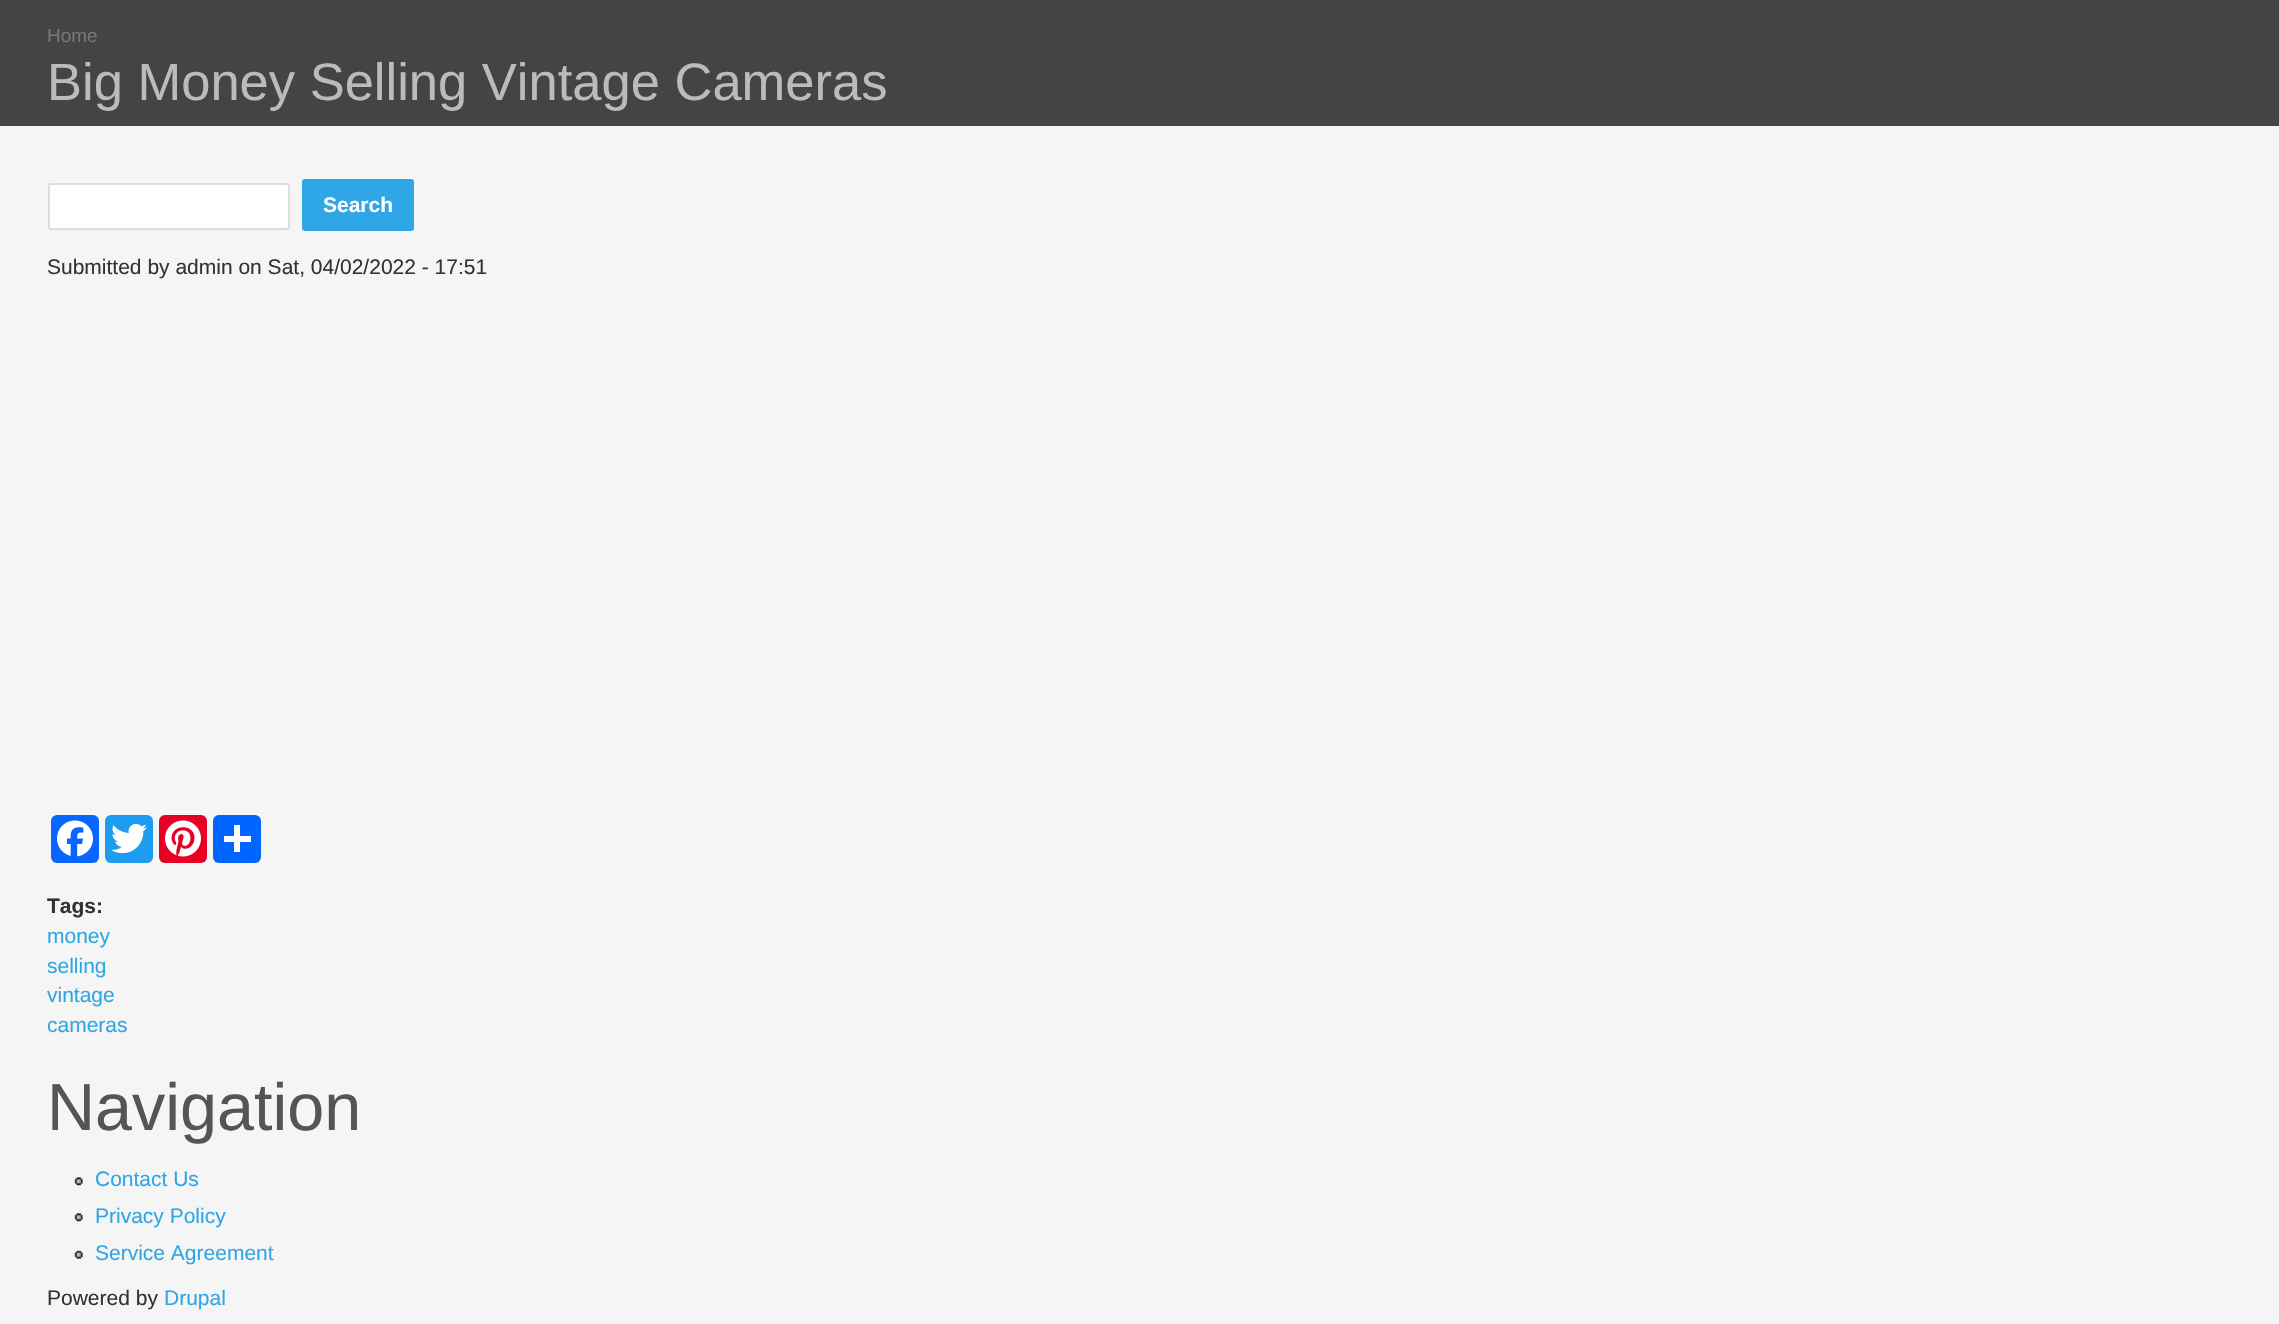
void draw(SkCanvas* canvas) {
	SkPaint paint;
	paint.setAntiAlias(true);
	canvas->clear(0xfff5f5f5);
	paint.setColor(0xff444444);
	canvas->drawRect(SkRect::MakeXYWH(0, 0, 2279, 126), paint);
	SkFont f1(fontMgr->matchFamilyStyle("Liberation Sans", SkFontStyle::Normal()), 19);
	f1.setSubpixel(true);
	paint.setColor(0xff777777);
	canvas->drawString("Home", 47, 42, f1, paint);
	SkFont f2(fontMgr->matchFamilyStyle("Liberation Sans", SkFontStyle::Normal()), 52.5);
	f2.setSubpixel(true);
	paint.setColor(0xffbbbbbb);
	canvas->drawString("Big Money Selling Vintage Cameras", 47, 100, f2, paint);
	paint.setColor(0xffffffff);
	canvas->drawRoundRect(SkRect::MakeXYWH(49, 184, 240, 45), 2, 2, paint);
	paint.setStroke(true);
	paint.setStrokeWidth(2);
	paint.setColor(0xffdddddd);
	canvas->drawRoundRect(SkRect::MakeXYWH(49, 184, 240, 45), 2, 2, paint);
	paint.setStroke(false);
	paint.setColor(0xff2fa6e5);
	canvas->drawRoundRect(SkRect::MakeXYWH(302, 179, 112, 52), 3, 3, paint);
	SkFont f3(fontMgr->matchFamilyStyle("Liberation Sans", SkFontStyle::Bold()), 21);
	f3.setSubpixel(true);
	paint.setColor(0xffffffff);
	canvas->drawString("Search", 323, 212, f3, paint);
	SkFont f4(fontMgr->matchFamilyStyle("Liberation Sans", SkFontStyle::Normal()), 21);
	f4.setSubpixel(true);
	paint.setColor(0xff333333);
	canvas->drawString("Submitted by admin on Sat, 04/02/2022 - 17:51", 47, 274, f4, paint);
	paint.setColor(0xff0866ff);
	canvas->drawRoundRect(SkRect::MakeXYWH(51, 815, 48, 48), 6, 6, paint);
	canvas->drawImageRect(SkImages::DeferredFromEncodedData(SkData::MakeFromFileName("img1.png")), SkRect::MakeXYWH(57, 820, 36, 37), SkSamplingOptions());
	paint.setColor(0xff1d9bf0);
	canvas->drawRoundRect(SkRect::MakeXYWH(105, 815, 48, 48), 6, 6, paint);
	canvas->drawImageRect(SkImages::DeferredFromEncodedData(SkData::MakeFromFileName("img2.png")), SkRect::MakeXYWH(111, 823, 36, 31), SkSamplingOptions());
	paint.setColor(0xffe60023);
	canvas->drawRoundRect(SkRect::MakeXYWH(159, 815, 48, 48), 6, 6, paint);
	canvas->drawImageRect(SkImages::DeferredFromEncodedData(SkData::MakeFromFileName("img3.png")), SkRect::MakeXYWH(165, 820, 36, 37), SkSamplingOptions());
	paint.setColor(0xff0166ff);
	canvas->drawRoundRect(SkRect::MakeXYWH(213, 815, 48, 48), 6, 6, paint);
	paint.setColor(0xffffffff);
	canvas->drawRect(SkRect::MakeXYWH(234, 825, 6, 27), paint);
	canvas->drawRect(SkRect::MakeXYWH(224, 836, 27, 6), paint);
	paint.setColor(0xff333333);
	canvas->drawString("Tags:", 47, 913, f3, paint);
	paint.setColor(0xff2fa6e5);
	canvas->drawString("money", 47, 943, f4, paint);
	canvas->drawString("selling", 47, 973, f4, paint);
	canvas->drawString("vintage", 47, 1002, f4, paint);
	canvas->drawString("cameras", 47, 1032, f4, paint);
	SkFont f5(fontMgr->matchFamilyStyle("Liberation Sans", SkFontStyle::Normal()), 66.5);
	f5.setSubpixel(true);
	paint.setColor(0xff555555);
	canvas->drawString("Navigation", 47, 1130, f5, paint);
	canvas->drawImageRect(SkImages::DeferredFromEncodedData(SkData::MakeFromFileName("img4.png")), SkRect::MakeXYWH(74, 1177, 9, 9), SkSamplingOptions());
	paint.setColor(0xff2fa6e5);
	canvas->drawString("Contact Us", 95, 1186, f4, paint);
	canvas->drawImageRect(SkImages::DeferredFromEncodedData(SkData::MakeFromFileName("img4.png")), SkRect::MakeXYWH(74, 1213, 9, 9), SkSamplingOptions());
	canvas->drawString("Privacy Policy", 95, 1223, f4, paint);
	canvas->drawImageRect(SkImages::DeferredFromEncodedData(SkData::MakeFromFileName("img5.png")), SkRect::MakeXYWH(74, 1250, 9, 9), SkSamplingOptions());
	canvas->drawString("Service Agreement", 95, 1260, f4, paint);
	paint.setColor(0xff333333);
	canvas->drawString("Powered by", 47, 1305, f4, paint);
	paint.setColor(0xff2fa6e5);
	canvas->drawString("Drupal", 164, 1305, f4, paint);
}
